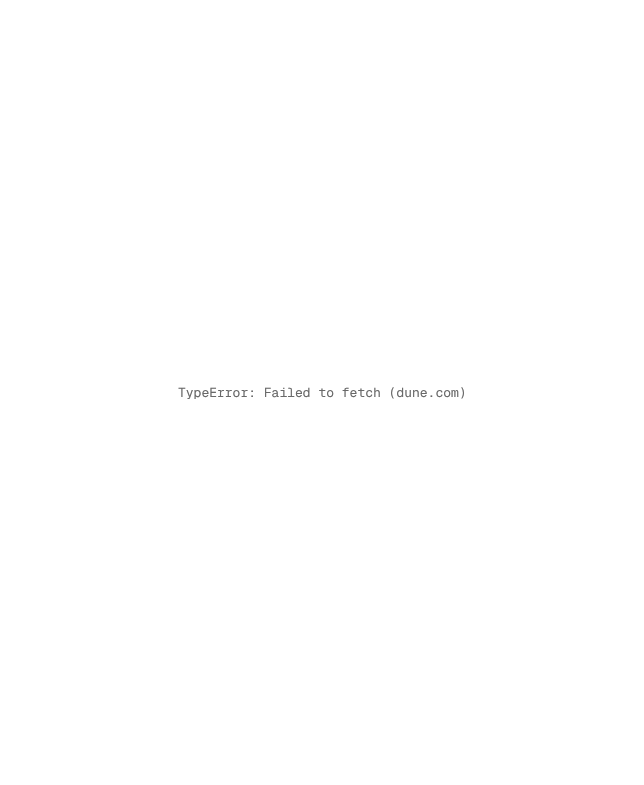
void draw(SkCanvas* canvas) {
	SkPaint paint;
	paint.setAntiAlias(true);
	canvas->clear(0xffffffff);
	SkFont f1(fontMgr->matchFamilyStyle("Geist Mono", SkFontStyle::Normal()), 13);
	f1.setSubpixel(true);
	paint.setColor(0xff696969);
	canvas->drawString("TypeError: Failed to fetch (dune.com)", 178, 397, f1, paint);
}
